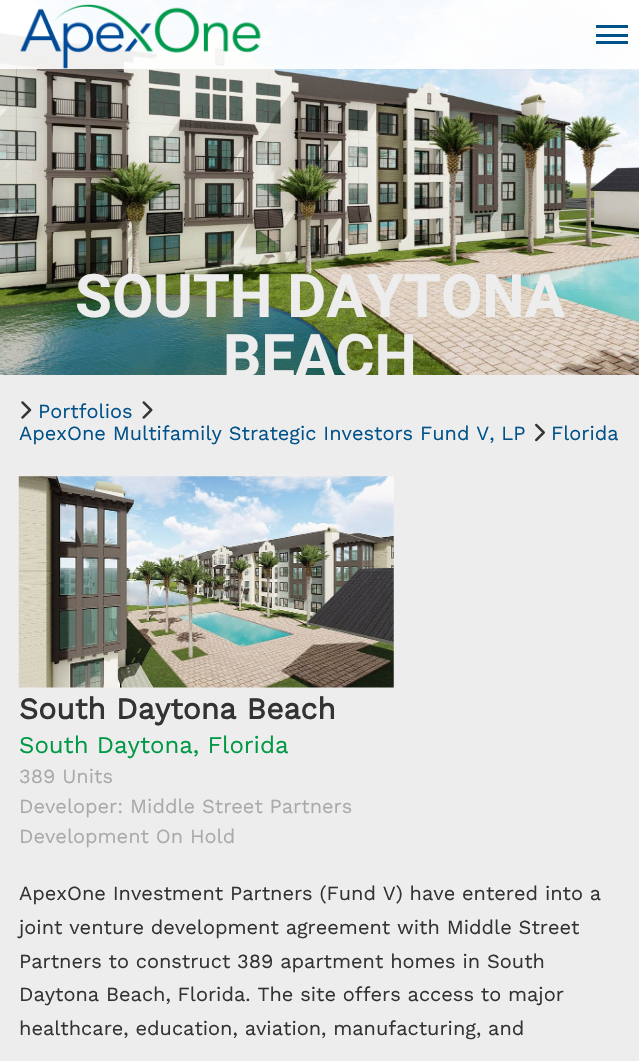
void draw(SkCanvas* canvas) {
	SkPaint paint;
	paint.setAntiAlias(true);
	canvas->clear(0xffededed);
	canvas->drawImageRect(SkImages::DeferredFromEncodedData(SkData::MakeFromFileName("img2.png")), SkRect::MakeXYWH(0, 0, 639, 375), SkSamplingOptions());
	paint.setColor(0xe6ffffff);
	canvas->drawRect(SkRect::MakeXYWH(0, 0, 639, 69), paint);
	canvas->drawImageRect(SkImages::DeferredFromEncodedData(SkData::MakeFromFileName("img1.png")), SkRect::MakeXYWH(20, 4, 241, 65), SkSamplingOptions());
	paint.setColor(0xff005289);
	canvas->drawRect(SkRect::MakeXYWH(596, 25, 32, 3), paint);
	canvas->drawRect(SkRect::MakeXYWH(596, 34, 32, 3), paint);
	canvas->drawRect(SkRect::MakeXYWH(596, 41, 32, 3), paint);
	SkFont f1(fontMgr->matchFamilyStyle("Roboto", SkFontStyle::Bold()), 60);
	f1.setSubpixel(true);
	paint.setColor(0xffededed);
	canvas->drawString("SOUTH DAYTONA", 75, 317, f1, paint);
	canvas->drawString("BEACH", 223, 377, f1, paint);
	canvas->drawImageRect(SkImages::DeferredFromEncodedData(SkData::MakeFromFileName("img3.png")), SkRect::MakeXYWH(21, 401, 11, 18), SkSamplingOptions());
	SkFont f2(fontMgr->matchFamilyStyle("Work Sans", SkFontStyle::Normal()), 20);
	f2.setSubpixel(true);
	paint.setColor(0xff005289);
	canvas->drawString("Portfolios", 38, 418, f2, paint);
	canvas->drawImageRect(SkImages::DeferredFromEncodedData(SkData::MakeFromFileName("img4.png")), SkRect::MakeXYWH(142, 401, 11, 18), SkSamplingOptions());
	canvas->drawString("ApexOne Multifamily Strategic Investors Fund V, LP", 19, 440, f2, paint);
	canvas->drawImageRect(SkImages::DeferredFromEncodedData(SkData::MakeFromFileName("img5.png")), SkRect::MakeXYWH(535, 423, 10, 19), SkSamplingOptions());
	canvas->drawString("Florida", 551, 440, f2, paint);
	canvas->drawImageRect(SkImages::DeferredFromEncodedData(SkData::MakeFromFileName("img6.png")), SkRect::MakeXYWH(18, 476, 376, 212), SkSamplingOptions());
	SkFont f3(fontMgr->matchFamilyStyle("Work Sans", SkFontStyle::Bold()), 30);
	f3.setSubpixel(true);
	paint.setColor(0xff333333);
	canvas->drawString("South Daytona Beach", 19, 719, f3, paint);
	SkFont f4(fontMgr->matchFamilyStyle("Work Sans", SkFontStyle::Normal()), 24);
	f4.setSubpixel(true);
	paint.setColor(0xff009845);
	canvas->drawString("South Daytona, Florida", 19, 753, f4, paint);
	paint.setColor(0xffaaaaaa);
	canvas->drawString("389 Units", 19, 783, f2, paint);
	canvas->drawString("Developer: Middle Street Partners", 19, 813, f2, paint);
	canvas->drawString("Development On Hold", 19, 843, f2, paint);
	paint.setColor(0xff333333);
	canvas->drawString("ApexOne Investment Partners (Fund V) have entered into a", 19, 900, f2, paint);
	canvas->drawString("joint venture development agreement with Middle Street", 19, 934, f2, paint);
	canvas->drawString("Partners to construct 389 apartment homes in South", 19, 968, f2, paint);
	canvas->drawString("Daytona Beach, Florida. The site offers access to major", 19, 1001, f2, paint);
	canvas->drawString("healthcare, education, aviation, manufacturing, and", 19, 1035, f2, paint);
}
